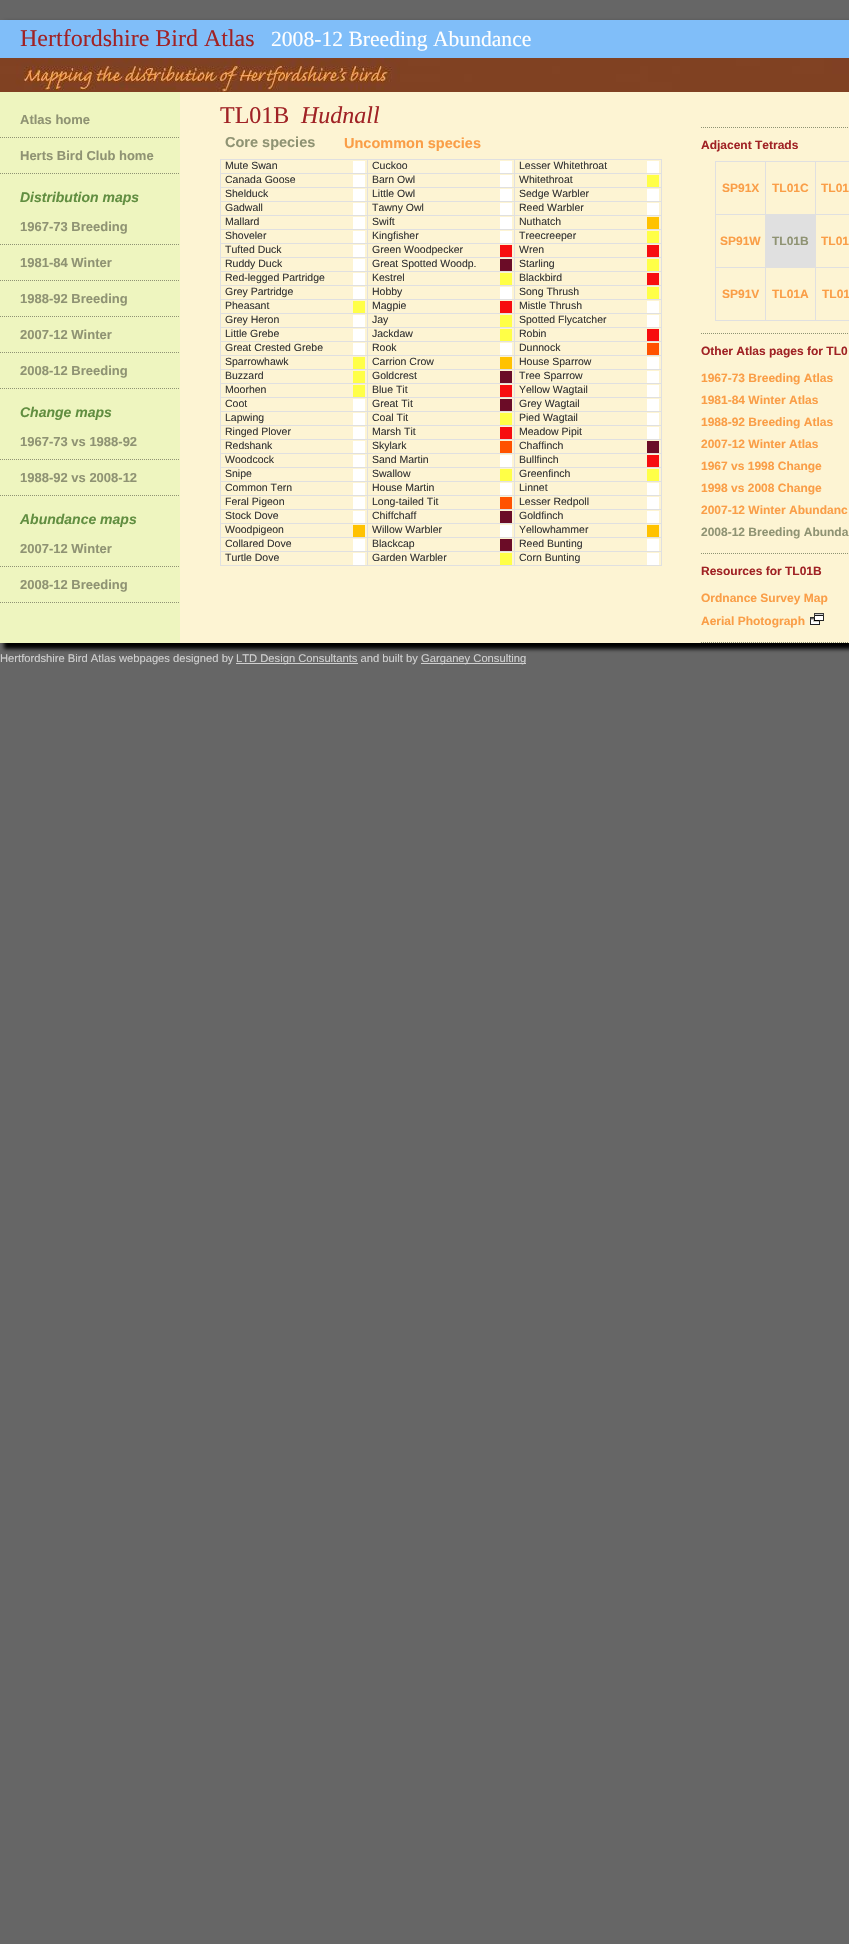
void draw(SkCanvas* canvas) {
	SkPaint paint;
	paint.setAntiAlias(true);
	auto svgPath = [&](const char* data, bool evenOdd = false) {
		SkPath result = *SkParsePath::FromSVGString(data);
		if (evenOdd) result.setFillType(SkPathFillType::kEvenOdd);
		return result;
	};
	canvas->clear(0xff666666);
	paint.setColor(0xff000000);
	paint.setMaskFilter(SkMaskFilter::MakeBlur(kNormal_SkBlurStyle, 3));
	canvas->drawRect(SkRect::MakeXYWH(4, 24, 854, 72), paint);
	paint.setMaskFilter(nullptr);
	paint.setColor(0xff80bef9);
	canvas->drawRect(SkRect::MakeXYWH(0, 20, 849, 38), paint);
	SkFont f1(fontMgr->matchFamilyStyle("Liberation Serif", SkFontStyle::Normal()), 24);
	f1.setSubpixel(true);
	paint.setColor(0xffa02225);
	canvas->drawString("Hertfordshire Bird Atlas", 20, 46, f1, paint);
	SkFont f2(fontMgr->matchFamilyStyle("Liberation Serif", SkFontStyle::Normal()), 21.6);
	f2.setSubpixel(true);
	paint.setColor(0xffffffff);
	canvas->drawString("2008-12 Breeding Abundance", 271, 46, f2, paint);
	canvas->drawImageRect(SkImages::DeferredFromEncodedData(SkData::MakeFromFileName("img1.png")), SkRect::MakeXYWH(0, 58, 849, 34), SkSamplingOptions());
	paint.setColor(0xff000000);
	paint.setMaskFilter(SkMaskFilter::MakeBlur(kNormal_SkBlurStyle, 2));
	canvas->drawRect(SkRect::MakeXYWH(4, 98, 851, 551), paint);
	paint.setMaskFilter(nullptr);
	paint.setColor(0xfffdf4d3);
	canvas->drawRect(SkRect::MakeXYWH(180, 92, 669, 551), paint);
	paint.setColor(0xffeef5bf);
	canvas->drawRect(SkRect::MakeXYWH(0, 92, 180, 551), paint);
	paint.setStroke(true);
	paint.setStrokeWidth(1);
	paint.setColor(0xff8f9373);
	paint.setPathEffect(SkDashPathEffect::Make({{1, 1}}, 0));
	canvas->drawPath(svgPath("M0 137.5H180"), paint);
	paint.setPathEffect(nullptr);
	SkFont f3(fontMgr->matchFamilyStyle("Liberation Sans", SkFontStyle::Bold()), 13);
	f3.setSubpixel(true);
	paint.setStroke(false);
	canvas->drawString("Atlas home", 20, 124, f3, paint);
	paint.setStroke(true);
	paint.setPathEffect(SkDashPathEffect::Make({{1, 1}}, 0));
	canvas->drawPath(svgPath("M0 173.5H180"), paint);
	paint.setPathEffect(nullptr);
	paint.setStroke(false);
	canvas->drawString("Herts Bird Club home", 20, 160, f3, paint);
	SkFont f4(fontMgr->matchFamilyStyle("Liberation Sans", SkFontStyle::BoldItalic()), 14);
	f4.setSubpixel(true);
	paint.setColor(0xff618e40);
	canvas->drawString("Distribution maps", 20, 202, f4, paint);
	paint.setStroke(true);
	paint.setColor(0xff8f9373);
	paint.setPathEffect(SkDashPathEffect::Make({{1, 1}}, 0));
	canvas->drawPath(svgPath("M0 244.5H180"), paint);
	paint.setPathEffect(nullptr);
	paint.setStroke(false);
	canvas->drawString("1967-73 Breeding", 20, 231, f3, paint);
	paint.setStroke(true);
	paint.setPathEffect(SkDashPathEffect::Make({{1, 1}}, 0));
	canvas->drawPath(svgPath("M0 280.5H180"), paint);
	paint.setPathEffect(nullptr);
	paint.setStroke(false);
	canvas->drawString("1981-84 Winter", 20, 267, f3, paint);
	paint.setStroke(true);
	paint.setPathEffect(SkDashPathEffect::Make({{1, 1}}, 0));
	canvas->drawPath(svgPath("M0 316.5H180"), paint);
	paint.setPathEffect(nullptr);
	paint.setStroke(false);
	canvas->drawString("1988-92 Breeding", 20, 303, f3, paint);
	paint.setStroke(true);
	paint.setPathEffect(SkDashPathEffect::Make({{1, 1}}, 0));
	canvas->drawPath(svgPath("M0 352.5H180"), paint);
	paint.setPathEffect(nullptr);
	paint.setStroke(false);
	canvas->drawString("2007-12 Winter", 20, 339, f3, paint);
	paint.setStroke(true);
	paint.setPathEffect(SkDashPathEffect::Make({{1, 1}}, 0));
	canvas->drawPath(svgPath("M0 388.5H180"), paint);
	paint.setPathEffect(nullptr);
	paint.setStroke(false);
	canvas->drawString("2008-12 Breeding", 20, 375, f3, paint);
	paint.setColor(0xff618e40);
	canvas->drawString("Change maps", 20, 417, f4, paint);
	paint.setStroke(true);
	paint.setColor(0xff8f9373);
	paint.setPathEffect(SkDashPathEffect::Make({{1, 1}}, 0));
	canvas->drawPath(svgPath("M0 459.5H180"), paint);
	paint.setPathEffect(nullptr);
	paint.setStroke(false);
	canvas->drawString("1967-73 vs 1988-92", 20, 446, f3, paint);
	paint.setStroke(true);
	paint.setPathEffect(SkDashPathEffect::Make({{1, 1}}, 0));
	canvas->drawPath(svgPath("M0 495.5H180"), paint);
	paint.setPathEffect(nullptr);
	paint.setStroke(false);
	canvas->drawString("1988-92 vs 2008-12", 20, 482, f3, paint);
	paint.setColor(0xff618e40);
	canvas->drawString("Abundance maps", 20, 524, f4, paint);
	paint.setStroke(true);
	paint.setColor(0xff8f9373);
	paint.setPathEffect(SkDashPathEffect::Make({{1, 1}}, 0));
	canvas->drawPath(svgPath("M0 566.5H180"), paint);
	paint.setPathEffect(nullptr);
	paint.setStroke(false);
	canvas->drawString("2007-12 Winter", 20, 553, f3, paint);
	paint.setStroke(true);
	paint.setPathEffect(SkDashPathEffect::Make({{1, 1}}, 0));
	canvas->drawPath(svgPath("M0 602.5H180"), paint);
	paint.setPathEffect(nullptr);
	paint.setStroke(false);
	canvas->drawString("2008-12 Breeding", 20, 589, f3, paint);
	paint.setColor(0xffa02225);
	canvas->drawString("TL01B", 220, 123, f1, paint);
	SkFont f5(fontMgr->matchFamilyStyle("Liberation Serif", SkFontStyle::Italic()), 24);
	f5.setSubpixel(true);
	canvas->drawString("Hudnall", 301, 123, f5, paint);
	SkFont f6(fontMgr->matchFamilyStyle("Liberation Sans", SkFontStyle::Bold()), 14.5);
	f6.setSubpixel(true);
	paint.setColor(0xff8f9373);
	canvas->drawString("Core species", 225, 147, f6, paint);
	paint.setColor(0xfffa9e47);
	canvas->drawString("Uncommon species", 344, 148, f6, paint);
	paint.setColor(0xffe0e0e0);
	canvas->drawRect(SkRect::MakeXYWH(514, 159, 148, 1), paint);
	canvas->drawRect(SkRect::MakeXYWH(514, 173, 148, 1), paint);
	canvas->drawRect(SkRect::MakeXYWH(514, 187, 148, 1), paint);
	canvas->drawRect(SkRect::MakeXYWH(514, 201, 148, 1), paint);
	canvas->drawRect(SkRect::MakeXYWH(514, 215, 148, 1), paint);
	canvas->drawRect(SkRect::MakeXYWH(514, 229, 148, 1), paint);
	canvas->drawRect(SkRect::MakeXYWH(514, 243, 148, 1), paint);
	canvas->drawRect(SkRect::MakeXYWH(514, 257, 148, 1), paint);
	canvas->drawRect(SkRect::MakeXYWH(514, 271, 148, 1), paint);
	canvas->drawRect(SkRect::MakeXYWH(514, 285, 148, 1), paint);
	canvas->drawRect(SkRect::MakeXYWH(514, 299, 148, 1), paint);
	canvas->drawRect(SkRect::MakeXYWH(514, 313, 148, 1), paint);
	canvas->drawRect(SkRect::MakeXYWH(514, 327, 148, 1), paint);
	canvas->drawRect(SkRect::MakeXYWH(514, 341, 148, 1), paint);
	canvas->drawRect(SkRect::MakeXYWH(514, 355, 148, 1), paint);
	canvas->drawRect(SkRect::MakeXYWH(514, 369, 148, 1), paint);
	canvas->drawRect(SkRect::MakeXYWH(514, 383, 148, 1), paint);
	canvas->drawRect(SkRect::MakeXYWH(514, 397, 148, 1), paint);
	canvas->drawRect(SkRect::MakeXYWH(514, 411, 148, 1), paint);
	canvas->drawRect(SkRect::MakeXYWH(514, 425, 148, 1), paint);
	canvas->drawRect(SkRect::MakeXYWH(514, 439, 148, 1), paint);
	canvas->drawRect(SkRect::MakeXYWH(514, 453, 148, 1), paint);
	canvas->drawRect(SkRect::MakeXYWH(514, 467, 148, 1), paint);
	canvas->drawRect(SkRect::MakeXYWH(514, 481, 148, 1), paint);
	canvas->drawRect(SkRect::MakeXYWH(514, 495, 148, 1), paint);
	canvas->drawRect(SkRect::MakeXYWH(514, 509, 148, 1), paint);
	canvas->drawRect(SkRect::MakeXYWH(514, 523, 148, 1), paint);
	canvas->drawRect(SkRect::MakeXYWH(514, 537, 148, 1), paint);
	canvas->drawRect(SkRect::MakeXYWH(514, 551, 148, 1), paint);
	canvas->drawRect(SkRect::MakeXYWH(661, 551, 1, 15), paint);
	canvas->drawRect(SkRect::MakeXYWH(514, 565, 148, 1), paint);
	canvas->drawRect(SkRect::MakeXYWH(514, 551, 1, 15), paint);
	canvas->drawRect(SkRect::MakeXYWH(367, 551, 148, 1), paint);
	canvas->drawRect(SkRect::MakeXYWH(514, 537, 1, 15), paint);
	canvas->drawRect(SkRect::MakeXYWH(367, 537, 148, 1), paint);
	canvas->drawRect(SkRect::MakeXYWH(514, 523, 1, 15), paint);
	canvas->drawRect(SkRect::MakeXYWH(367, 523, 148, 1), paint);
	canvas->drawRect(SkRect::MakeXYWH(514, 509, 1, 15), paint);
	canvas->drawRect(SkRect::MakeXYWH(367, 509, 148, 1), paint);
	canvas->drawRect(SkRect::MakeXYWH(514, 495, 1, 15), paint);
	canvas->drawRect(SkRect::MakeXYWH(367, 495, 148, 1), paint);
	canvas->drawRect(SkRect::MakeXYWH(514, 481, 1, 15), paint);
	canvas->drawRect(SkRect::MakeXYWH(367, 481, 148, 1), paint);
	canvas->drawRect(SkRect::MakeXYWH(514, 467, 1, 15), paint);
	canvas->drawRect(SkRect::MakeXYWH(367, 467, 148, 1), paint);
	canvas->drawRect(SkRect::MakeXYWH(514, 453, 1, 15), paint);
	canvas->drawRect(SkRect::MakeXYWH(367, 453, 148, 1), paint);
	canvas->drawRect(SkRect::MakeXYWH(514, 439, 1, 15), paint);
	canvas->drawRect(SkRect::MakeXYWH(367, 439, 148, 1), paint);
	canvas->drawRect(SkRect::MakeXYWH(514, 425, 1, 15), paint);
	canvas->drawRect(SkRect::MakeXYWH(367, 425, 148, 1), paint);
	canvas->drawRect(SkRect::MakeXYWH(514, 411, 1, 15), paint);
	canvas->drawRect(SkRect::MakeXYWH(367, 411, 148, 1), paint);
	canvas->drawRect(SkRect::MakeXYWH(514, 397, 1, 15), paint);
	canvas->drawRect(SkRect::MakeXYWH(367, 397, 148, 1), paint);
	canvas->drawRect(SkRect::MakeXYWH(514, 383, 1, 15), paint);
	canvas->drawRect(SkRect::MakeXYWH(367, 383, 148, 1), paint);
	canvas->drawRect(SkRect::MakeXYWH(514, 369, 1, 15), paint);
	canvas->drawRect(SkRect::MakeXYWH(367, 369, 148, 1), paint);
	canvas->drawRect(SkRect::MakeXYWH(514, 355, 1, 15), paint);
	canvas->drawRect(SkRect::MakeXYWH(367, 355, 148, 1), paint);
	canvas->drawRect(SkRect::MakeXYWH(514, 341, 1, 15), paint);
	canvas->drawRect(SkRect::MakeXYWH(367, 341, 148, 1), paint);
	canvas->drawRect(SkRect::MakeXYWH(514, 327, 1, 15), paint);
	canvas->drawRect(SkRect::MakeXYWH(367, 327, 148, 1), paint);
	canvas->drawRect(SkRect::MakeXYWH(514, 313, 1, 15), paint);
	canvas->drawRect(SkRect::MakeXYWH(367, 313, 148, 1), paint);
	canvas->drawRect(SkRect::MakeXYWH(514, 299, 1, 15), paint);
	canvas->drawRect(SkRect::MakeXYWH(367, 299, 148, 1), paint);
	canvas->drawRect(SkRect::MakeXYWH(514, 285, 1, 15), paint);
	canvas->drawRect(SkRect::MakeXYWH(367, 285, 148, 1), paint);
	canvas->drawRect(SkRect::MakeXYWH(514, 271, 1, 15), paint);
	canvas->drawRect(SkRect::MakeXYWH(367, 271, 148, 1), paint);
	canvas->drawRect(SkRect::MakeXYWH(514, 257, 1, 15), paint);
	canvas->drawRect(SkRect::MakeXYWH(367, 257, 148, 1), paint);
	canvas->drawRect(SkRect::MakeXYWH(514, 243, 1, 15), paint);
	canvas->drawRect(SkRect::MakeXYWH(367, 243, 148, 1), paint);
	canvas->drawRect(SkRect::MakeXYWH(514, 229, 1, 15), paint);
	canvas->drawRect(SkRect::MakeXYWH(367, 229, 148, 1), paint);
	canvas->drawRect(SkRect::MakeXYWH(514, 215, 1, 15), paint);
	canvas->drawRect(SkRect::MakeXYWH(367, 215, 148, 1), paint);
	canvas->drawRect(SkRect::MakeXYWH(514, 201, 1, 15), paint);
	canvas->drawRect(SkRect::MakeXYWH(367, 201, 148, 1), paint);
	canvas->drawRect(SkRect::MakeXYWH(514, 187, 1, 15), paint);
	canvas->drawRect(SkRect::MakeXYWH(367, 187, 148, 1), paint);
	canvas->drawRect(SkRect::MakeXYWH(514, 173, 1, 15), paint);
	canvas->drawRect(SkRect::MakeXYWH(367, 173, 148, 1), paint);
	canvas->drawRect(SkRect::MakeXYWH(514, 159, 1, 15), paint);
	canvas->drawRect(SkRect::MakeXYWH(367, 159, 148, 1), paint);
	canvas->drawRect(SkRect::MakeXYWH(367, 565, 148, 1), paint);
	canvas->drawRect(SkRect::MakeXYWH(367, 551, 1, 15), paint);
	canvas->drawRect(SkRect::MakeXYWH(220, 551, 148, 1), paint);
	canvas->drawRect(SkRect::MakeXYWH(367, 537, 1, 15), paint);
	canvas->drawRect(SkRect::MakeXYWH(220, 537, 148, 1), paint);
	canvas->drawRect(SkRect::MakeXYWH(367, 523, 1, 15), paint);
	canvas->drawRect(SkRect::MakeXYWH(220, 523, 148, 1), paint);
	canvas->drawRect(SkRect::MakeXYWH(367, 509, 1, 15), paint);
	canvas->drawRect(SkRect::MakeXYWH(220, 509, 148, 1), paint);
	canvas->drawRect(SkRect::MakeXYWH(367, 495, 1, 15), paint);
	canvas->drawRect(SkRect::MakeXYWH(220, 495, 148, 1), paint);
	canvas->drawRect(SkRect::MakeXYWH(367, 481, 1, 15), paint);
	canvas->drawRect(SkRect::MakeXYWH(220, 481, 148, 1), paint);
	canvas->drawRect(SkRect::MakeXYWH(367, 467, 1, 15), paint);
	canvas->drawRect(SkRect::MakeXYWH(220, 467, 148, 1), paint);
	canvas->drawRect(SkRect::MakeXYWH(367, 453, 1, 15), paint);
	canvas->drawRect(SkRect::MakeXYWH(220, 453, 148, 1), paint);
	canvas->drawRect(SkRect::MakeXYWH(367, 439, 1, 15), paint);
	canvas->drawRect(SkRect::MakeXYWH(220, 439, 148, 1), paint);
	canvas->drawRect(SkRect::MakeXYWH(367, 425, 1, 15), paint);
	canvas->drawRect(SkRect::MakeXYWH(220, 425, 148, 1), paint);
	canvas->drawRect(SkRect::MakeXYWH(367, 411, 1, 15), paint);
	canvas->drawRect(SkRect::MakeXYWH(220, 411, 148, 1), paint);
	canvas->drawRect(SkRect::MakeXYWH(367, 397, 1, 15), paint);
	canvas->drawRect(SkRect::MakeXYWH(220, 397, 148, 1), paint);
	canvas->drawRect(SkRect::MakeXYWH(367, 383, 1, 15), paint);
	canvas->drawRect(SkRect::MakeXYWH(220, 383, 148, 1), paint);
	canvas->drawRect(SkRect::MakeXYWH(367, 369, 1, 15), paint);
	canvas->drawRect(SkRect::MakeXYWH(220, 369, 148, 1), paint);
	canvas->drawRect(SkRect::MakeXYWH(367, 355, 1, 15), paint);
	canvas->drawRect(SkRect::MakeXYWH(220, 355, 148, 1), paint);
	canvas->drawRect(SkRect::MakeXYWH(367, 341, 1, 15), paint);
	canvas->drawRect(SkRect::MakeXYWH(220, 341, 148, 1), paint);
	canvas->drawRect(SkRect::MakeXYWH(367, 327, 1, 15), paint);
	canvas->drawRect(SkRect::MakeXYWH(220, 327, 148, 1), paint);
	canvas->drawRect(SkRect::MakeXYWH(367, 313, 1, 15), paint);
	canvas->drawRect(SkRect::MakeXYWH(220, 313, 148, 1), paint);
	canvas->drawRect(SkRect::MakeXYWH(367, 299, 1, 15), paint);
	canvas->drawRect(SkRect::MakeXYWH(220, 299, 148, 1), paint);
	canvas->drawRect(SkRect::MakeXYWH(367, 285, 1, 15), paint);
	canvas->drawRect(SkRect::MakeXYWH(220, 285, 148, 1), paint);
	canvas->drawRect(SkRect::MakeXYWH(367, 271, 1, 15), paint);
	canvas->drawRect(SkRect::MakeXYWH(220, 271, 148, 1), paint);
	canvas->drawRect(SkRect::MakeXYWH(367, 257, 1, 15), paint);
	canvas->drawRect(SkRect::MakeXYWH(220, 257, 148, 1), paint);
	canvas->drawRect(SkRect::MakeXYWH(367, 243, 1, 15), paint);
	canvas->drawRect(SkRect::MakeXYWH(220, 243, 148, 1), paint);
	canvas->drawRect(SkRect::MakeXYWH(367, 229, 1, 15), paint);
	canvas->drawRect(SkRect::MakeXYWH(220, 229, 148, 1), paint);
	canvas->drawRect(SkRect::MakeXYWH(367, 215, 1, 15), paint);
	canvas->drawRect(SkRect::MakeXYWH(220, 215, 148, 1), paint);
	canvas->drawRect(SkRect::MakeXYWH(367, 201, 1, 15), paint);
	canvas->drawRect(SkRect::MakeXYWH(220, 201, 148, 1), paint);
	canvas->drawRect(SkRect::MakeXYWH(367, 187, 1, 15), paint);
	canvas->drawRect(SkRect::MakeXYWH(220, 187, 148, 1), paint);
	canvas->drawRect(SkRect::MakeXYWH(367, 173, 1, 15), paint);
	canvas->drawRect(SkRect::MakeXYWH(220, 173, 148, 1), paint);
	canvas->drawRect(SkRect::MakeXYWH(367, 159, 1, 15), paint);
	canvas->drawRect(SkRect::MakeXYWH(220, 159, 148, 1), paint);
	canvas->drawRect(SkRect::MakeXYWH(220, 565, 148, 1), paint);
	canvas->drawRect(SkRect::MakeXYWH(220, 551, 1, 15), paint);
	canvas->drawRect(SkRect::MakeXYWH(220, 537, 1, 15), paint);
	canvas->drawRect(SkRect::MakeXYWH(220, 523, 1, 15), paint);
	canvas->drawRect(SkRect::MakeXYWH(220, 509, 1, 15), paint);
	canvas->drawRect(SkRect::MakeXYWH(220, 495, 1, 15), paint);
	canvas->drawRect(SkRect::MakeXYWH(220, 481, 1, 15), paint);
	canvas->drawRect(SkRect::MakeXYWH(220, 467, 1, 15), paint);
	canvas->drawRect(SkRect::MakeXYWH(220, 453, 1, 15), paint);
	canvas->drawRect(SkRect::MakeXYWH(220, 439, 1, 15), paint);
	canvas->drawRect(SkRect::MakeXYWH(220, 425, 1, 15), paint);
	canvas->drawRect(SkRect::MakeXYWH(220, 411, 1, 15), paint);
	canvas->drawRect(SkRect::MakeXYWH(220, 397, 1, 15), paint);
	canvas->drawRect(SkRect::MakeXYWH(220, 383, 1, 15), paint);
	canvas->drawRect(SkRect::MakeXYWH(220, 369, 1, 15), paint);
	canvas->drawRect(SkRect::MakeXYWH(220, 355, 1, 15), paint);
	canvas->drawRect(SkRect::MakeXYWH(220, 341, 1, 15), paint);
	canvas->drawRect(SkRect::MakeXYWH(220, 327, 1, 15), paint);
	canvas->drawRect(SkRect::MakeXYWH(220, 313, 1, 15), paint);
	canvas->drawRect(SkRect::MakeXYWH(220, 299, 1, 15), paint);
	canvas->drawRect(SkRect::MakeXYWH(220, 285, 1, 15), paint);
	canvas->drawRect(SkRect::MakeXYWH(220, 271, 1, 15), paint);
	canvas->drawRect(SkRect::MakeXYWH(220, 257, 1, 15), paint);
	canvas->drawRect(SkRect::MakeXYWH(220, 243, 1, 15), paint);
	canvas->drawRect(SkRect::MakeXYWH(220, 229, 1, 15), paint);
	canvas->drawRect(SkRect::MakeXYWH(220, 215, 1, 15), paint);
	canvas->drawRect(SkRect::MakeXYWH(220, 201, 1, 15), paint);
	canvas->drawRect(SkRect::MakeXYWH(220, 187, 1, 15), paint);
	canvas->drawRect(SkRect::MakeXYWH(220, 173, 1, 15), paint);
	canvas->drawRect(SkRect::MakeXYWH(220, 159, 1, 15), paint);
	SkFont f7(fontMgr->matchFamilyStyle("Liberation Sans", SkFontStyle::Normal()), 10.5);
	f7.setSubpixel(true);
	paint.setColor(0xff333333);
	canvas->drawString("Mute Swan", 225, 169, f7, paint);
	paint.setColor(0xffffffff);
	canvas->drawRect(SkRect::MakeXYWH(353, 161, 12, 12), paint);
	paint.setColor(0xff333333);
	canvas->drawString("Cuckoo", 372, 169, f7, paint);
	paint.setColor(0xffffffff);
	canvas->drawRect(SkRect::MakeXYWH(500, 161, 12, 12), paint);
	paint.setColor(0xffe0e0e0);
	canvas->drawRect(SkRect::MakeXYWH(661, 537, 1, 15), paint);
	canvas->drawRect(SkRect::MakeXYWH(661, 523, 1, 15), paint);
	canvas->drawRect(SkRect::MakeXYWH(661, 509, 1, 15), paint);
	canvas->drawRect(SkRect::MakeXYWH(661, 495, 1, 15), paint);
	canvas->drawRect(SkRect::MakeXYWH(661, 481, 1, 15), paint);
	canvas->drawRect(SkRect::MakeXYWH(661, 467, 1, 15), paint);
	canvas->drawRect(SkRect::MakeXYWH(661, 453, 1, 15), paint);
	canvas->drawRect(SkRect::MakeXYWH(661, 439, 1, 15), paint);
	canvas->drawRect(SkRect::MakeXYWH(661, 425, 1, 15), paint);
	canvas->drawRect(SkRect::MakeXYWH(661, 411, 1, 15), paint);
	canvas->drawRect(SkRect::MakeXYWH(661, 397, 1, 15), paint);
	canvas->drawRect(SkRect::MakeXYWH(661, 383, 1, 15), paint);
	canvas->drawRect(SkRect::MakeXYWH(661, 369, 1, 15), paint);
	canvas->drawRect(SkRect::MakeXYWH(661, 355, 1, 15), paint);
	canvas->drawRect(SkRect::MakeXYWH(661, 341, 1, 15), paint);
	canvas->drawRect(SkRect::MakeXYWH(661, 327, 1, 15), paint);
	canvas->drawRect(SkRect::MakeXYWH(661, 313, 1, 15), paint);
	canvas->drawRect(SkRect::MakeXYWH(661, 299, 1, 15), paint);
	canvas->drawRect(SkRect::MakeXYWH(661, 285, 1, 15), paint);
	canvas->drawRect(SkRect::MakeXYWH(661, 271, 1, 15), paint);
	canvas->drawRect(SkRect::MakeXYWH(661, 257, 1, 15), paint);
	canvas->drawRect(SkRect::MakeXYWH(661, 243, 1, 15), paint);
	canvas->drawRect(SkRect::MakeXYWH(661, 229, 1, 15), paint);
	canvas->drawRect(SkRect::MakeXYWH(661, 215, 1, 15), paint);
	canvas->drawRect(SkRect::MakeXYWH(661, 201, 1, 15), paint);
	canvas->drawRect(SkRect::MakeXYWH(661, 187, 1, 15), paint);
	canvas->drawRect(SkRect::MakeXYWH(661, 173, 1, 15), paint);
	canvas->drawRect(SkRect::MakeXYWH(661, 159, 1, 15), paint);
	paint.setColor(0xff333333);
	canvas->drawString("Lesser Whitethroat", 519, 169, f7, paint);
	paint.setColor(0xffffffff);
	canvas->drawRect(SkRect::MakeXYWH(647, 161, 12, 12), paint);
	paint.setColor(0xff333333);
	canvas->drawString("Canada Goose", 225, 183, f7, paint);
	paint.setColor(0xffffffff);
	canvas->drawRect(SkRect::MakeXYWH(353, 175, 12, 12), paint);
	paint.setColor(0xff333333);
	canvas->drawString("Barn Owl", 372, 183, f7, paint);
	paint.setColor(0xffffffff);
	canvas->drawRect(SkRect::MakeXYWH(500, 175, 12, 12), paint);
	paint.setColor(0xff333333);
	canvas->drawString("Whitethroat", 519, 183, f7, paint);
	paint.setColor(0xffffff47);
	canvas->drawRect(SkRect::MakeXYWH(647, 175, 12, 12), paint);
	paint.setColor(0xff333333);
	canvas->drawString("Shelduck", 225, 197, f7, paint);
	paint.setColor(0xffffffff);
	canvas->drawRect(SkRect::MakeXYWH(353, 189, 12, 12), paint);
	paint.setColor(0xff333333);
	canvas->drawString("Little Owl", 372, 197, f7, paint);
	paint.setColor(0xffffffff);
	canvas->drawRect(SkRect::MakeXYWH(500, 189, 12, 12), paint);
	paint.setColor(0xff333333);
	canvas->drawString("Sedge Warbler", 519, 197, f7, paint);
	paint.setColor(0xffffffff);
	canvas->drawRect(SkRect::MakeXYWH(647, 189, 12, 12), paint);
	paint.setColor(0xff333333);
	canvas->drawString("Gadwall", 225, 211, f7, paint);
	paint.setColor(0xffffffff);
	canvas->drawRect(SkRect::MakeXYWH(353, 203, 12, 12), paint);
	paint.setColor(0xff333333);
	canvas->drawString("Tawny Owl", 372, 211, f7, paint);
	paint.setColor(0xffffffff);
	canvas->drawRect(SkRect::MakeXYWH(500, 203, 12, 12), paint);
	paint.setColor(0xff333333);
	canvas->drawString("Reed Warbler", 519, 211, f7, paint);
	paint.setColor(0xffffffff);
	canvas->drawRect(SkRect::MakeXYWH(647, 203, 12, 12), paint);
	paint.setColor(0xff333333);
	canvas->drawString("Mallard", 225, 225, f7, paint);
	paint.setColor(0xffffffff);
	canvas->drawRect(SkRect::MakeXYWH(353, 217, 12, 12), paint);
	paint.setColor(0xff333333);
	canvas->drawString("Swift", 372, 225, f7, paint);
	paint.setColor(0xffffffff);
	canvas->drawRect(SkRect::MakeXYWH(500, 217, 12, 12), paint);
	paint.setColor(0xff333333);
	canvas->drawString("Nuthatch", 519, 225, f7, paint);
	paint.setColor(0xffffc200);
	canvas->drawRect(SkRect::MakeXYWH(647, 217, 12, 12), paint);
	paint.setColor(0xff333333);
	canvas->drawString("Shoveler", 225, 239, f7, paint);
	paint.setColor(0xffffffff);
	canvas->drawRect(SkRect::MakeXYWH(353, 231, 12, 12), paint);
	paint.setColor(0xff333333);
	canvas->drawString("Kingfisher", 372, 239, f7, paint);
	paint.setColor(0xffffffff);
	canvas->drawRect(SkRect::MakeXYWH(500, 231, 12, 12), paint);
	paint.setColor(0xff333333);
	canvas->drawString("Treecreeper", 519, 239, f7, paint);
	paint.setColor(0xffffff47);
	canvas->drawRect(SkRect::MakeXYWH(647, 231, 12, 12), paint);
	paint.setColor(0xff333333);
	canvas->drawString("Tufted Duck", 225, 253, f7, paint);
	paint.setColor(0xffffffff);
	canvas->drawRect(SkRect::MakeXYWH(353, 245, 12, 12), paint);
	paint.setColor(0xff333333);
	canvas->drawString("Green Woodpecker", 372, 253, f7, paint);
	paint.setColor(0xfff70d0f);
	canvas->drawRect(SkRect::MakeXYWH(500, 245, 12, 12), paint);
	paint.setColor(0xff333333);
	canvas->drawString("Wren", 519, 253, f7, paint);
	paint.setColor(0xfff70d0f);
	canvas->drawRect(SkRect::MakeXYWH(647, 245, 12, 12), paint);
	paint.setColor(0xff333333);
	canvas->drawString("Ruddy Duck", 225, 267, f7, paint);
	paint.setColor(0xffffffff);
	canvas->drawRect(SkRect::MakeXYWH(353, 259, 12, 12), paint);
	paint.setColor(0xff333333);
	canvas->drawString("Great Spotted Woodp.", 372, 267, f7, paint);
	paint.setColor(0xff6b0c27);
	canvas->drawRect(SkRect::MakeXYWH(500, 259, 12, 12), paint);
	paint.setColor(0xff333333);
	canvas->drawString("Starling", 519, 267, f7, paint);
	paint.setColor(0xffffff47);
	canvas->drawRect(SkRect::MakeXYWH(647, 259, 12, 12), paint);
	paint.setColor(0xff333333);
	canvas->drawString("Red-legged Partridge", 225, 281, f7, paint);
	paint.setColor(0xffffffff);
	canvas->drawRect(SkRect::MakeXYWH(353, 273, 12, 12), paint);
	paint.setColor(0xff333333);
	canvas->drawString("Kestrel", 372, 281, f7, paint);
	paint.setColor(0xffffff47);
	canvas->drawRect(SkRect::MakeXYWH(500, 273, 12, 12), paint);
	paint.setColor(0xff333333);
	canvas->drawString("Blackbird", 519, 281, f7, paint);
	paint.setColor(0xfff70d0f);
	canvas->drawRect(SkRect::MakeXYWH(647, 273, 12, 12), paint);
	paint.setColor(0xff333333);
	canvas->drawString("Grey Partridge", 225, 295, f7, paint);
	paint.setColor(0xffffffff);
	canvas->drawRect(SkRect::MakeXYWH(353, 287, 12, 12), paint);
	paint.setColor(0xff333333);
	canvas->drawString("Hobby", 372, 295, f7, paint);
	paint.setColor(0xffffffff);
	canvas->drawRect(SkRect::MakeXYWH(500, 287, 12, 12), paint);
	paint.setColor(0xff333333);
	canvas->drawString("Song Thrush", 519, 295, f7, paint);
	paint.setColor(0xffffff47);
	canvas->drawRect(SkRect::MakeXYWH(647, 287, 12, 12), paint);
	paint.setColor(0xff333333);
	canvas->drawString("Pheasant", 225, 309, f7, paint);
	paint.setColor(0xffffff47);
	canvas->drawRect(SkRect::MakeXYWH(353, 301, 12, 12), paint);
	paint.setColor(0xff333333);
	canvas->drawString("Magpie", 372, 309, f7, paint);
	paint.setColor(0xfff70d0f);
	canvas->drawRect(SkRect::MakeXYWH(500, 301, 12, 12), paint);
	paint.setColor(0xff333333);
	canvas->drawString("Mistle Thrush", 519, 309, f7, paint);
	paint.setColor(0xffffffff);
	canvas->drawRect(SkRect::MakeXYWH(647, 301, 12, 12), paint);
	paint.setColor(0xff333333);
	canvas->drawString("Grey Heron", 225, 323, f7, paint);
	paint.setColor(0xffffffff);
	canvas->drawRect(SkRect::MakeXYWH(353, 315, 12, 12), paint);
	paint.setColor(0xff333333);
	canvas->drawString("Jay", 372, 323, f7, paint);
	paint.setColor(0xffffff47);
	canvas->drawRect(SkRect::MakeXYWH(500, 315, 12, 12), paint);
	paint.setColor(0xff333333);
	canvas->drawString("Spotted Flycatcher", 519, 323, f7, paint);
	paint.setColor(0xffffffff);
	canvas->drawRect(SkRect::MakeXYWH(647, 315, 12, 12), paint);
	paint.setColor(0xff333333);
	canvas->drawString("Little Grebe", 225, 337, f7, paint);
	paint.setColor(0xffffffff);
	canvas->drawRect(SkRect::MakeXYWH(353, 329, 12, 12), paint);
	paint.setColor(0xff333333);
	canvas->drawString("Jackdaw", 372, 337, f7, paint);
	paint.setColor(0xffffff47);
	canvas->drawRect(SkRect::MakeXYWH(500, 329, 12, 12), paint);
	paint.setColor(0xff333333);
	canvas->drawString("Robin", 519, 337, f7, paint);
	paint.setColor(0xfff70d0f);
	canvas->drawRect(SkRect::MakeXYWH(647, 329, 12, 12), paint);
	paint.setColor(0xff333333);
	canvas->drawString("Great Crested Grebe", 225, 351, f7, paint);
	paint.setColor(0xffffffff);
	canvas->drawRect(SkRect::MakeXYWH(353, 343, 12, 12), paint);
	paint.setColor(0xff333333);
	canvas->drawString("Rook", 372, 351, f7, paint);
	paint.setColor(0xffffffff);
	canvas->drawRect(SkRect::MakeXYWH(500, 343, 12, 12), paint);
	paint.setColor(0xff333333);
	canvas->drawString("Dunnock", 519, 351, f7, paint);
	paint.setColor(0xffff5200);
	canvas->drawRect(SkRect::MakeXYWH(647, 343, 12, 12), paint);
	paint.setColor(0xff333333);
	canvas->drawString("Sparrowhawk", 225, 365, f7, paint);
	paint.setColor(0xffffff47);
	canvas->drawRect(SkRect::MakeXYWH(353, 357, 12, 12), paint);
	paint.setColor(0xff333333);
	canvas->drawString("Carrion Crow", 372, 365, f7, paint);
	paint.setColor(0xffffc200);
	canvas->drawRect(SkRect::MakeXYWH(500, 357, 12, 12), paint);
	paint.setColor(0xff333333);
	canvas->drawString("House Sparrow", 519, 365, f7, paint);
	paint.setColor(0xffffffff);
	canvas->drawRect(SkRect::MakeXYWH(647, 357, 12, 12), paint);
	paint.setColor(0xff333333);
	canvas->drawString("Buzzard", 225, 379, f7, paint);
	paint.setColor(0xffffff47);
	canvas->drawRect(SkRect::MakeXYWH(353, 371, 12, 12), paint);
	paint.setColor(0xff333333);
	canvas->drawString("Goldcrest", 372, 379, f7, paint);
	paint.setColor(0xff6b0c27);
	canvas->drawRect(SkRect::MakeXYWH(500, 371, 12, 12), paint);
	paint.setColor(0xff333333);
	canvas->drawString("Tree Sparrow", 519, 379, f7, paint);
	paint.setColor(0xffffffff);
	canvas->drawRect(SkRect::MakeXYWH(647, 371, 12, 12), paint);
	paint.setColor(0xff333333);
	canvas->drawString("Moorhen", 225, 393, f7, paint);
	paint.setColor(0xffffff47);
	canvas->drawRect(SkRect::MakeXYWH(353, 385, 12, 12), paint);
	paint.setColor(0xff333333);
	canvas->drawString("Blue Tit", 372, 393, f7, paint);
	paint.setColor(0xfff70d0f);
	canvas->drawRect(SkRect::MakeXYWH(500, 385, 12, 12), paint);
	paint.setColor(0xff333333);
	canvas->drawString("Yellow Wagtail", 519, 393, f7, paint);
	paint.setColor(0xffffffff);
	canvas->drawRect(SkRect::MakeXYWH(647, 385, 12, 12), paint);
	paint.setColor(0xff333333);
	canvas->drawString("Coot", 225, 407, f7, paint);
	paint.setColor(0xffffffff);
	canvas->drawRect(SkRect::MakeXYWH(353, 399, 12, 12), paint);
	paint.setColor(0xff333333);
	canvas->drawString("Great Tit", 372, 407, f7, paint);
	paint.setColor(0xff6b0c27);
	canvas->drawRect(SkRect::MakeXYWH(500, 399, 12, 12), paint);
	paint.setColor(0xff333333);
	canvas->drawString("Grey Wagtail", 519, 407, f7, paint);
	paint.setColor(0xffffffff);
	canvas->drawRect(SkRect::MakeXYWH(647, 399, 12, 12), paint);
	paint.setColor(0xff333333);
	canvas->drawString("Lapwing", 225, 421, f7, paint);
	paint.setColor(0xffffffff);
	canvas->drawRect(SkRect::MakeXYWH(353, 413, 12, 12), paint);
	paint.setColor(0xff333333);
	canvas->drawString("Coal Tit", 372, 421, f7, paint);
	paint.setColor(0xffffff47);
	canvas->drawRect(SkRect::MakeXYWH(500, 413, 12, 12), paint);
	paint.setColor(0xff333333);
	canvas->drawString("Pied Wagtail", 519, 421, f7, paint);
	paint.setColor(0xffffffff);
	canvas->drawRect(SkRect::MakeXYWH(647, 413, 12, 12), paint);
	paint.setColor(0xff333333);
	canvas->drawString("Ringed Plover", 225, 435, f7, paint);
	paint.setColor(0xffffffff);
	canvas->drawRect(SkRect::MakeXYWH(353, 427, 12, 12), paint);
	paint.setColor(0xff333333);
	canvas->drawString("Marsh Tit", 372, 435, f7, paint);
	paint.setColor(0xfff70d0f);
	canvas->drawRect(SkRect::MakeXYWH(500, 427, 12, 12), paint);
	paint.setColor(0xff333333);
	canvas->drawString("Meadow Pipit", 519, 435, f7, paint);
	paint.setColor(0xffffffff);
	canvas->drawRect(SkRect::MakeXYWH(647, 427, 12, 12), paint);
	paint.setColor(0xff333333);
	canvas->drawString("Redshank", 225, 449, f7, paint);
	paint.setColor(0xffffffff);
	canvas->drawRect(SkRect::MakeXYWH(353, 441, 12, 12), paint);
	paint.setColor(0xff333333);
	canvas->drawString("Skylark", 372, 449, f7, paint);
	paint.setColor(0xffff5200);
	canvas->drawRect(SkRect::MakeXYWH(500, 441, 12, 12), paint);
	paint.setColor(0xff333333);
	canvas->drawString("Chaffinch", 519, 449, f7, paint);
	paint.setColor(0xff6b0c27);
	canvas->drawRect(SkRect::MakeXYWH(647, 441, 12, 12), paint);
	paint.setColor(0xff333333);
	canvas->drawString("Woodcock", 225, 463, f7, paint);
	paint.setColor(0xffffffff);
	canvas->drawRect(SkRect::MakeXYWH(353, 455, 12, 12), paint);
	paint.setColor(0xff333333);
	canvas->drawString("Sand Martin", 372, 463, f7, paint);
	paint.setColor(0xffffffff);
	canvas->drawRect(SkRect::MakeXYWH(500, 455, 12, 12), paint);
	paint.setColor(0xff333333);
	canvas->drawString("Bullfinch", 519, 463, f7, paint);
	paint.setColor(0xfff70d0f);
	canvas->drawRect(SkRect::MakeXYWH(647, 455, 12, 12), paint);
	paint.setColor(0xff333333);
	canvas->drawString("Snipe", 225, 477, f7, paint);
	paint.setColor(0xffffffff);
	canvas->drawRect(SkRect::MakeXYWH(353, 469, 12, 12), paint);
	paint.setColor(0xff333333);
	canvas->drawString("Swallow", 372, 477, f7, paint);
	paint.setColor(0xffffff47);
	canvas->drawRect(SkRect::MakeXYWH(500, 469, 12, 12), paint);
	paint.setColor(0xff333333);
	canvas->drawString("Greenfinch", 519, 477, f7, paint);
	paint.setColor(0xffffff47);
	canvas->drawRect(SkRect::MakeXYWH(647, 469, 12, 12), paint);
	paint.setColor(0xff333333);
	canvas->drawString("Common Tern", 225, 491, f7, paint);
	paint.setColor(0xffffffff);
	canvas->drawRect(SkRect::MakeXYWH(353, 483, 12, 12), paint);
	paint.setColor(0xff333333);
	canvas->drawString("House Martin", 372, 491, f7, paint);
	paint.setColor(0xffffffff);
	canvas->drawRect(SkRect::MakeXYWH(500, 483, 12, 12), paint);
	paint.setColor(0xff333333);
	canvas->drawString("Linnet", 519, 491, f7, paint);
	paint.setColor(0xffffffff);
	canvas->drawRect(SkRect::MakeXYWH(647, 483, 12, 12), paint);
	paint.setColor(0xff333333);
	canvas->drawString("Feral Pigeon", 225, 505, f7, paint);
	paint.setColor(0xffffffff);
	canvas->drawRect(SkRect::MakeXYWH(353, 497, 12, 12), paint);
	paint.setColor(0xff333333);
	canvas->drawString("Long-tailed Tit", 372, 505, f7, paint);
	paint.setColor(0xffff5200);
	canvas->drawRect(SkRect::MakeXYWH(500, 497, 12, 12), paint);
	paint.setColor(0xff333333);
	canvas->drawString("Lesser Redpoll", 519, 505, f7, paint);
	paint.setColor(0xffffffff);
	canvas->drawRect(SkRect::MakeXYWH(647, 497, 12, 12), paint);
	paint.setColor(0xff333333);
	canvas->drawString("Stock Dove", 225, 519, f7, paint);
	paint.setColor(0xffffffff);
	canvas->drawRect(SkRect::MakeXYWH(353, 511, 12, 12), paint);
	paint.setColor(0xff333333);
	canvas->drawString("Chiffchaff", 372, 519, f7, paint);
	paint.setColor(0xff6b0c27);
	canvas->drawRect(SkRect::MakeXYWH(500, 511, 12, 12), paint);
	paint.setColor(0xff333333);
	canvas->drawString("Goldfinch", 519, 519, f7, paint);
	paint.setColor(0xffffffff);
	canvas->drawRect(SkRect::MakeXYWH(647, 511, 12, 12), paint);
	paint.setColor(0xff333333);
	canvas->drawString("Woodpigeon", 225, 533, f7, paint);
	paint.setColor(0xffffc200);
	canvas->drawRect(SkRect::MakeXYWH(353, 525, 12, 12), paint);
	paint.setColor(0xff333333);
	canvas->drawString("Willow Warbler", 372, 533, f7, paint);
	paint.setColor(0xffffffff);
	canvas->drawRect(SkRect::MakeXYWH(500, 525, 12, 12), paint);
	paint.setColor(0xff333333);
	canvas->drawString("Yellowhammer", 519, 533, f7, paint);
	paint.setColor(0xffffc200);
	canvas->drawRect(SkRect::MakeXYWH(647, 525, 12, 12), paint);
	paint.setColor(0xff333333);
	canvas->drawString("Collared Dove", 225, 547, f7, paint);
	paint.setColor(0xffffffff);
	canvas->drawRect(SkRect::MakeXYWH(353, 539, 12, 12), paint);
	paint.setColor(0xff333333);
	canvas->drawString("Blackcap", 372, 547, f7, paint);
	paint.setColor(0xff6b0c27);
	canvas->drawRect(SkRect::MakeXYWH(500, 539, 12, 12), paint);
	paint.setColor(0xff333333);
	canvas->drawString("Reed Bunting", 519, 547, f7, paint);
	paint.setColor(0xffffffff);
	canvas->drawRect(SkRect::MakeXYWH(647, 539, 12, 12), paint);
	paint.setColor(0xff333333);
	canvas->drawString("Turtle Dove", 225, 561, f7, paint);
	paint.setColor(0xffffffff);
	canvas->drawRect(SkRect::MakeXYWH(353, 553, 12, 12), paint);
	paint.setColor(0xff333333);
	canvas->drawString("Garden Warbler", 372, 561, f7, paint);
	paint.setColor(0xffffff47);
	canvas->drawRect(SkRect::MakeXYWH(500, 553, 12, 12), paint);
	paint.setColor(0xff333333);
	canvas->drawString("Corn Bunting", 519, 561, f7, paint);
	paint.setColor(0xffffffff);
	canvas->drawRect(SkRect::MakeXYWH(647, 553, 12, 12), paint);
	paint.setStroke(true);
	paint.setColor(0xff8f9373);
	paint.setPathEffect(SkDashPathEffect::Make({{1, 1}}, 0));
	canvas->drawPath(svgPath("M701 642.5H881"), paint);
	paint.setPathEffect(nullptr);
	paint.setPathEffect(SkDashPathEffect::Make({{1, 1}}, 0));
	canvas->drawPath(svgPath("M701 127.5H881"), paint);
	paint.setPathEffect(nullptr);
	SkFont f8(fontMgr->matchFamilyStyle("Liberation Sans", SkFontStyle::Bold()), 12);
	f8.setSubpixel(true);
	paint.setStroke(false);
	paint.setColor(0xffa02225);
	canvas->drawString("Adjacent Tetrads", 701, 149, f8, paint);
	paint.setColor(0xffe0e0e0);
	canvas->drawRect(SkRect::MakeXYWH(815, 161, 34, 1), paint);
	canvas->drawRect(SkRect::MakeXYWH(815, 214, 34, 1), paint);
	canvas->drawRect(SkRect::MakeXYWH(815, 267, 34, 1), paint);
	canvas->drawRect(SkRect::MakeXYWH(815, 320, 34, 1), paint);
	canvas->drawRect(SkRect::MakeXYWH(815, 267, 1, 54), paint);
	canvas->drawRect(SkRect::MakeXYWH(765, 267, 51, 1), paint);
	canvas->drawRect(SkRect::MakeXYWH(815, 214, 1, 54), paint);
	canvas->drawRect(SkRect::MakeXYWH(765, 214, 51, 1), paint);
	canvas->drawRect(SkRect::MakeXYWH(815, 161, 1, 54), paint);
	canvas->drawRect(SkRect::MakeXYWH(765, 161, 51, 1), paint);
	canvas->drawRect(SkRect::MakeXYWH(765, 320, 51, 1), paint);
	canvas->drawRect(SkRect::MakeXYWH(765, 267, 1, 54), paint);
	canvas->drawRect(SkRect::MakeXYWH(715, 267, 51, 1), paint);
	canvas->drawRect(SkRect::MakeXYWH(765, 214, 1, 54), paint);
	canvas->drawRect(SkRect::MakeXYWH(715, 214, 51, 1), paint);
	canvas->drawRect(SkRect::MakeXYWH(765, 161, 1, 54), paint);
	canvas->drawRect(SkRect::MakeXYWH(715, 161, 51, 1), paint);
	canvas->drawRect(SkRect::MakeXYWH(715, 320, 51, 1), paint);
	canvas->drawRect(SkRect::MakeXYWH(715, 267, 1, 54), paint);
	canvas->drawRect(SkRect::MakeXYWH(715, 214, 1, 54), paint);
	canvas->drawRect(SkRect::MakeXYWH(715, 161, 1, 54), paint);
	paint.setColor(0xfffa9e47);
	canvas->drawString("SP91X", 722, 192, f8, paint);
	canvas->drawString("TL01C", 772, 192, f8, paint);
	canvas->drawString("TL01", 821, 192, f8, paint);
	canvas->drawString("SP91W", 720, 245, f8, paint);
	paint.setColor(0xffe0e0e0);
	canvas->drawRect(SkRect::MakeXYWH(766, 215, 49, 52), paint);
	paint.setColor(0xff8f9373);
	canvas->drawString("TL01B", 772, 245, f8, paint);
	paint.setColor(0xfffa9e47);
	canvas->drawString("TL01", 821, 245, f8, paint);
	canvas->drawString("SP91V", 722, 298, f8, paint);
	canvas->drawString("TL01A", 772, 298, f8, paint);
	canvas->drawString("TL01", 822, 298, f8, paint);
	paint.setStroke(true);
	paint.setColor(0xff8f9373);
	paint.setPathEffect(SkDashPathEffect::Make({{1, 1}}, 0));
	canvas->drawPath(svgPath("M701 333.5H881"), paint);
	paint.setPathEffect(nullptr);
	paint.setStroke(false);
	paint.setColor(0xffa02225);
	canvas->drawString("Other Atlas pages for TL0", 701, 355, f8, paint);
	paint.setColor(0xfffa9e47);
	canvas->drawString("1967-73 Breeding Atlas", 701, 382, f8, paint);
	canvas->drawString("1981-84 Winter Atlas", 701, 404, f8, paint);
	canvas->drawString("1988-92 Breeding Atlas", 701, 426, f8, paint);
	canvas->drawString("2007-12 Winter Atlas", 701, 448, f8, paint);
	canvas->drawString("1967 vs 1998 Change", 701, 470, f8, paint);
	canvas->drawString("1998 vs 2008 Change", 701, 492, f8, paint);
	canvas->drawString("2007-12 Winter Abundanc", 701, 514, f8, paint);
	paint.setColor(0xff8f9373);
	canvas->drawString("2008-12 Breeding Abunda", 701, 536, f8, paint);
	paint.setStroke(true);
	paint.setPathEffect(SkDashPathEffect::Make({{1, 1}}, 0));
	canvas->drawPath(svgPath("M701 553.5H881"), paint);
	paint.setPathEffect(nullptr);
	paint.setStroke(false);
	paint.setColor(0xffa02225);
	canvas->drawString("Resources for TL01B", 701, 575, f8, paint);
	paint.setColor(0xfffa9e47);
	canvas->drawString("Ordnance Survey Map", 701, 602, f8, paint);
	canvas->drawString("Aerial Photograph", 701, 625, f8, paint);
	canvas->drawImageRect(SkImages::DeferredFromEncodedData(SkData::MakeFromFileName("img2.png")), SkRect::MakeXYWH(810, 613, 14, 12), SkSamplingOptions());
	SkFont f9(fontMgr->matchFamilyStyle("Liberation Sans", SkFontStyle::Normal()), 11.2);
	f9.setSubpixel(true);
	paint.setColor(0xffd0d0d0);
	canvas->drawString("Hertfordshire Bird Atlas webpages designed by", 0, 662, f9, paint);
	canvas->drawRect(SkRect::MakeXYWH(236, 663, 122, 1), paint);
	canvas->drawString("LTD Design Consultants and built by", 236, 662, f9, paint);
	canvas->drawRect(SkRect::MakeXYWH(421, 663, 105, 1), paint);
	canvas->drawString("Garganey Consulting", 421, 662, f9, paint);
}
